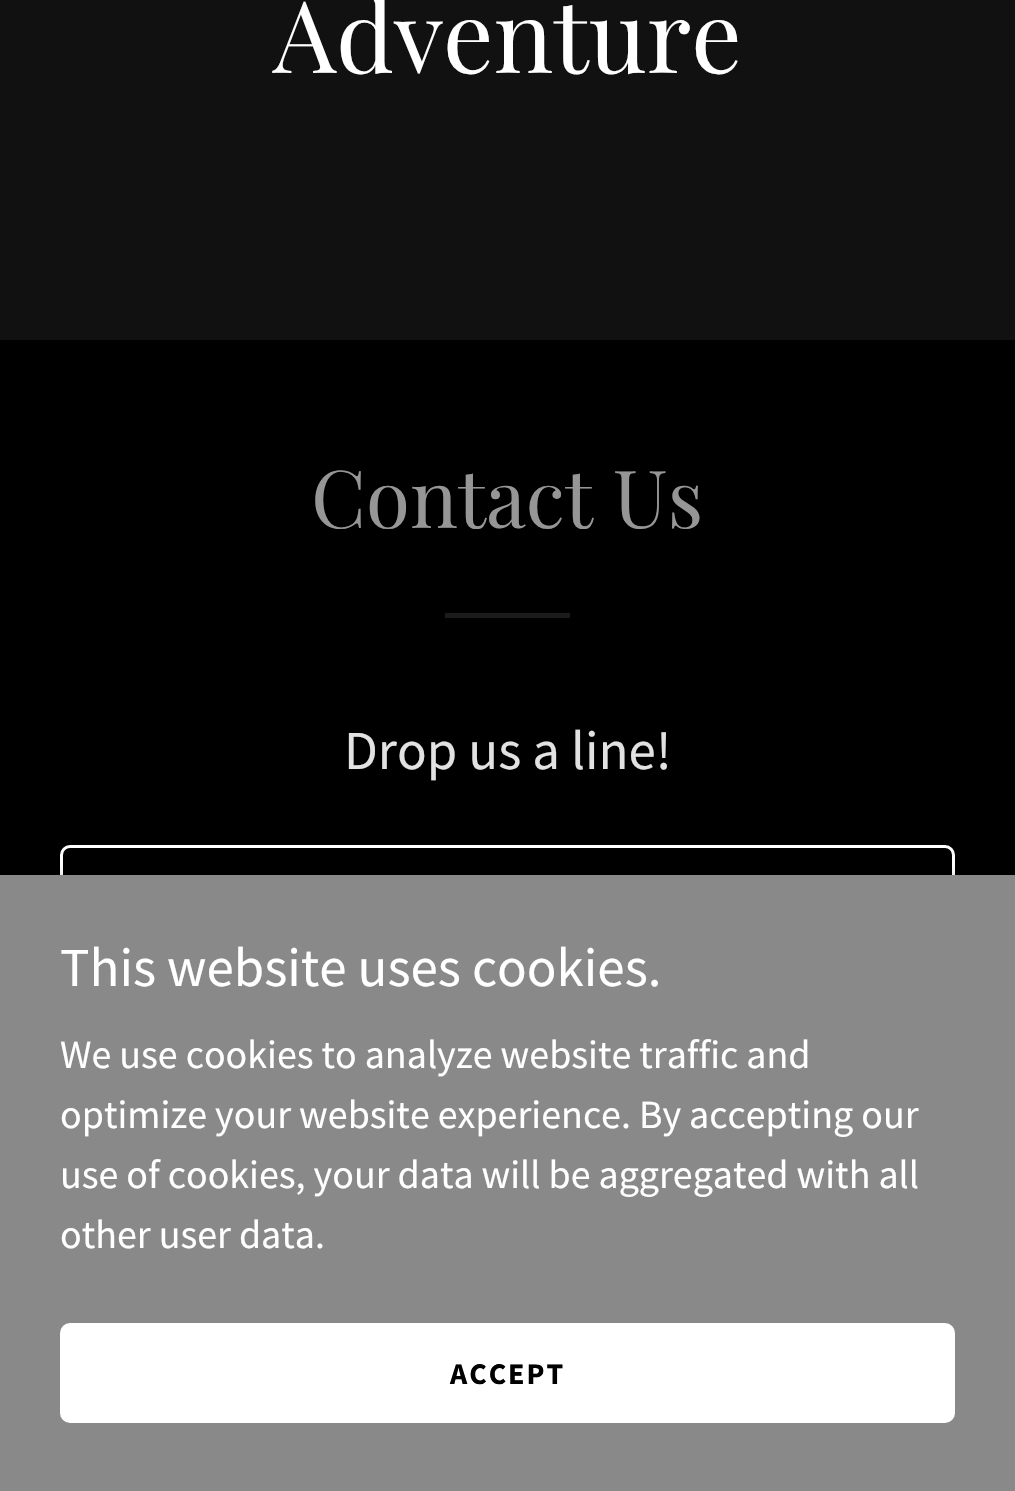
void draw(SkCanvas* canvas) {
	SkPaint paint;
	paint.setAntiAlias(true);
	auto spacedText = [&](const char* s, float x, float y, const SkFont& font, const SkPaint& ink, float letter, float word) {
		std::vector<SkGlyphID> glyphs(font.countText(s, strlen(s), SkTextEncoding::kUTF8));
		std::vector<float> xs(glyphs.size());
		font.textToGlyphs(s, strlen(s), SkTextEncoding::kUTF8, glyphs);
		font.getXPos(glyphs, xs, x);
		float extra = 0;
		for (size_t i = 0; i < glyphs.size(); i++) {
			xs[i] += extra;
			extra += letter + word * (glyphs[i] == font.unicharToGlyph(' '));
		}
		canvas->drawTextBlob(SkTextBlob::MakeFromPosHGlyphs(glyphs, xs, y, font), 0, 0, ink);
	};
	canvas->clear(0xff000000);
	paint.setColor(0xff111111);
	canvas->drawRect(SkRect::MakeXYWH(0, 0, 1015, 340), paint);
	SkFont f1(fontMgr->matchFamilyStyle("Playfair Display", SkFontStyle::Normal()), 100);
	f1.setSubpixel(true);
	paint.setColor(0xffffffff);
	canvas->drawString("Adventure", 273, 73, f1, paint);
	SkFont f2(fontMgr->matchFamilyStyle("Playfair Display", SkFontStyle::Normal()), 80);
	f2.setSubpixel(true);
	paint.setColor(0xff969696);
	canvas->drawString("Contact Us", 311, 528, f2, paint);
	paint.setColor(0xff1b1b1b);
	canvas->drawRect(SkRect::MakeXYWH(445, 613, 125, 5), paint);
	SkFont f3(fontMgr->matchFamilyStyle("Source Sans Pro", SkFontStyle::Normal()), 55);
	f3.setSubpixel(true);
	paint.setColor(0xffe2e2e2);
	canvas->drawString("Drop us a line!", 344, 769, f3, paint);
	paint.setStroke(true);
	paint.setStrokeWidth(3);
	paint.setColor(0xffffffff);
	canvas->drawRoundRect(SkRect::MakeXYWH(61.5, 846.5, 892, 127), 8.5, 8.5, paint);
	paint.setStroke(false);
	paint.setColor(0x4d000000);
	paint.setMaskFilter(SkMaskFilter::MakeBlur(kNormal_SkBlurStyle, 7.5));
	canvas->drawRect(SkRect::MakeXYWH(0, 880, 1015, 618), paint);
	paint.setMaskFilter(nullptr);
	paint.setColor(0xff898989);
	canvas->drawRect(SkRect::MakeXYWH(0, 875, 1015, 616), paint);
	paint.setColor(0xffffffff);
	canvas->drawString("This website uses cookies.", 60, 986, f3, paint);
	SkFont f4(fontMgr->matchFamilyStyle("Source Sans Pro", SkFontStyle::Normal()), 40);
	f4.setSubpixel(true);
	canvas->drawString("We use cookies to analyze website traffic and", 60, 1068, f4, paint);
	canvas->drawString("optimize your website experience. By accepting our", 60, 1128, f4, paint);
	canvas->drawString("use of cookies, your data will be aggregated with all", 60, 1188, f4, paint);
	canvas->drawString("other user data.", 60, 1248, f4, paint);
	canvas->drawRoundRect(SkRect::MakeXYWH(60, 1323, 895, 100), 10, 10, paint);
	SkFont f5(fontMgr->matchFamilyStyle("Source Sans Pro", SkFontStyle::Bold()), 30);
	f5.setSubpixel(true);
	paint.setColor(0xff000000);
	spacedText("ACCEPT", 450, 1384, f5, paint, 2, 0);
}
